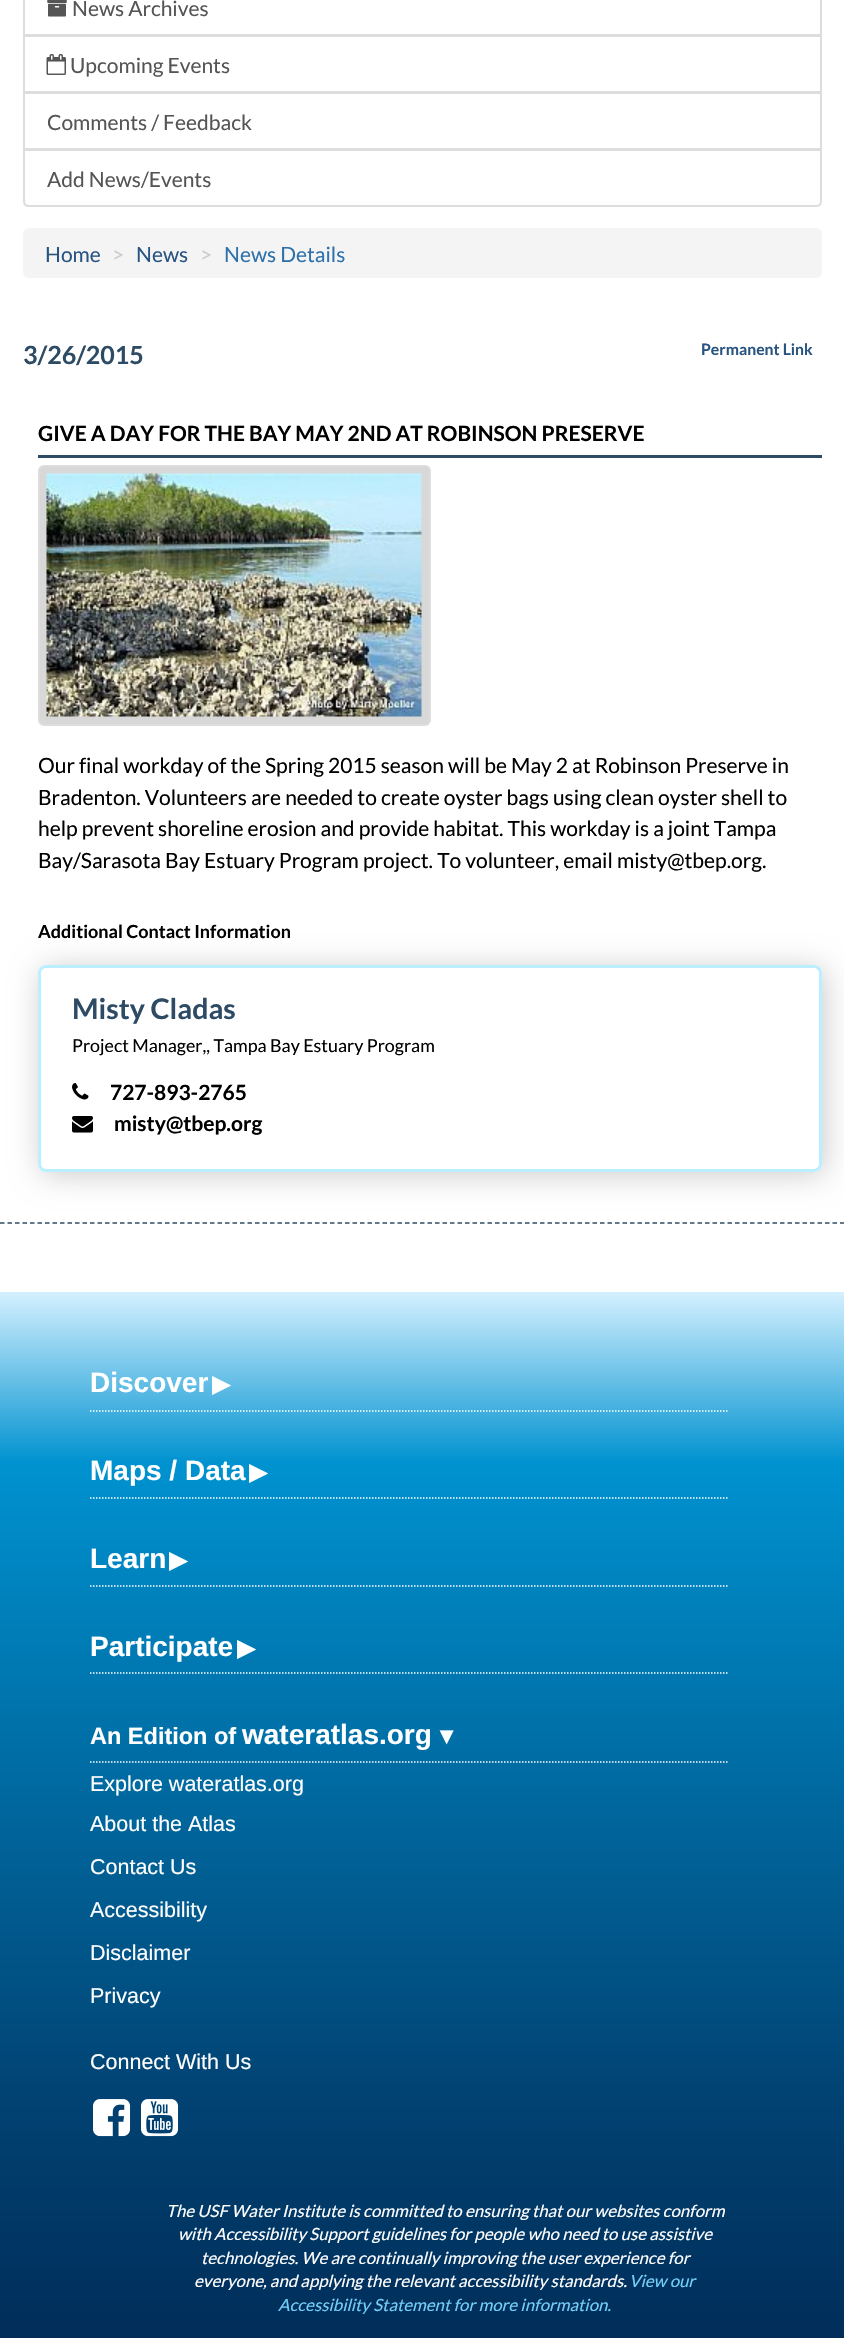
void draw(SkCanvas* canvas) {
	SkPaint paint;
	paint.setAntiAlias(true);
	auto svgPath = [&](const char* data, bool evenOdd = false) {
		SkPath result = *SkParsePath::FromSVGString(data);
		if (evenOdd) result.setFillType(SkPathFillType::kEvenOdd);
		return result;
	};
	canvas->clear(0xffffffff);
	paint.setStroke(true);
	paint.setStrokeWidth(2);
	paint.setColor(0xffdddddd);
	canvas->drawRect(SkRect::MakeXYWH(24, -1, 797, 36), paint);
	canvas->drawImageRect(SkImages::DeferredFromEncodedData(SkData::MakeFromFileName("img1.png")), SkRect::MakeXYWH(47, 0, 20, 17), SkSamplingOptions());
	SkFont f1(fontMgr->matchFamilyStyle("Lato", SkFontStyle::Normal()), 21);
	f1.setSubpixel(true);
	paint.setStroke(false);
	paint.setColor(0xff555555);
	canvas->drawString("News Archives", 72, 16, f1, paint);
	paint.setStroke(true);
	paint.setColor(0xffdddddd);
	canvas->drawRect(SkRect::MakeXYWH(24, 36, 797, 56), paint);
	canvas->drawImageRect(SkImages::DeferredFromEncodedData(SkData::MakeFromFileName("img2.png")), SkRect::MakeXYWH(46, 54, 20, 21), SkSamplingOptions());
	paint.setStroke(false);
	paint.setColor(0xff555555);
	canvas->drawString("Upcoming Events", 70, 73, f1, paint);
	paint.setStroke(true);
	paint.setColor(0xffdddddd);
	canvas->drawRect(SkRect::MakeXYWH(24, 93, 797, 56), paint);
	paint.setStroke(false);
	paint.setColor(0xff555555);
	canvas->drawString("Comments / Feedback", 47, 130, f1, paint);
	paint.setColor(0xffffffff);
	canvas->drawPath(svgPath("M24 150H821V201C821 204 819 206 816 206H29C26 206 24 204 24 201Z"), paint);
	paint.setStroke(true);
	paint.setColor(0xffdddddd);
	canvas->drawPath(svgPath("M24 150H821V201C821 204 819 206 816 206H29C26 206 24 204 24 201Z"), paint);
	paint.setStroke(false);
	paint.setColor(0xff555555);
	canvas->drawString("Add News/Events", 47, 187, f1, paint);
	paint.setColor(0xfff4f4f4);
	canvas->drawRoundRect(SkRect::MakeXYWH(23, 228, 799, 50), 6, 6, paint);
	paint.setColor(0xff285481);
	canvas->drawString("Home", 45, 262, f1, paint);
	paint.setColor(0xffcccccc);
	canvas->drawString(">", 112, 262, f1, paint);
	paint.setColor(0xff285481);
	canvas->drawString("News", 136, 262, f1, paint);
	paint.setColor(0xffcccccc);
	canvas->drawString(">", 200, 262, f1, paint);
	paint.setColor(0xff2f71aa);
	canvas->drawString("News Details", 224, 262, f1, paint);
	SkFont f2(fontMgr->matchFamilyStyle("Lato", SkFontStyle::Bold()), 25);
	f2.setSubpixel(true);
	paint.setColor(0xff2e4b65);
	canvas->drawString("3/26/2015", 23, 364, f2, paint);
	SkFont f3(fontMgr->matchFamilyStyle("Lato", SkFontStyle::Bold()), 15.75);
	f3.setSubpixel(true);
	paint.setColor(0xff285481);
	canvas->drawString("Permanent Link", 701, 355, f3, paint);
	paint.setStroke(true);
	paint.setStrokeWidth(1.5);
	paint.setColor(0xff2e4b65);
	paint.setPathEffect(SkDashPathEffect::Make({{4.5f, 3}}, 0));
	canvas->drawPath(svgPath("M0 1223H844.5"), paint);
	paint.setPathEffect(nullptr);
	paint.setStroke(false);
	canvas->drawRect(SkRect::MakeXYWH(38, 455, 784, 3), paint);
	SkFont f4(fontMgr->matchFamilyStyle("Lato", SkFontStyle::Bold()), 21);
	f4.setSubpixel(true);
	paint.setColor(0xff000000);
	canvas->drawString("GIVE A DAY FOR THE BAY MAY 2ND AT ROBINSON PRESERVE", 38, 441, f4, paint);
	paint.setColor(0xffd8d8d8);
	canvas->drawRoundRect(SkRect::MakeXYWH(39, 466, 391, 259), 5, 5, paint);
	paint.setStroke(true);
	paint.setStrokeWidth(2);
	paint.setColor(0xffdddddd);
	canvas->drawRoundRect(SkRect::MakeXYWH(39, 466, 391, 259), 5, 5, paint);
	canvas->drawImageRect(SkImages::DeferredFromEncodedData(SkData::MakeFromFileName("img3.png")), SkRect::MakeXYWH(46, 473, 376, 244), SkSamplingOptions());
	paint.setStroke(false);
	paint.setColor(0xff000000);
	canvas->drawString("Our final workday of the Spring 2015 season will be May 2 at Robinson Preserve in", 38, 773, f1, paint);
	canvas->drawString("Bradenton. Volunteers are needed to create oyster bags using clean oyster shell to", 38, 805, f1, paint);
	canvas->drawString("help prevent shoreline erosion and provide habitat. This workday is a joint Tampa", 38, 836, f1, paint);
	canvas->drawString("Bay/Sarasota Bay Estuary Program project. To volunteer, email misty@tbep.org.", 38, 868, f1, paint);
	SkFont f5(fontMgr->matchFamilyStyle("Lato", SkFontStyle::Bold()), 18);
	f5.setSubpixel(true);
	canvas->drawString("Additional Contact Information", 38, 938, f5, paint);
	canvas->save();
	canvas->clipPath(svgPath("M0 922H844V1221H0ZM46 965H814C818.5 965 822 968.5 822 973V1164C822 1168.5 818.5 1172 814 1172H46C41.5 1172 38 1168.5 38 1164V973C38 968.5 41.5 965 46 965Z", true), true);
	paint.setColor(0xffcccccc);
	paint.setMaskFilter(SkMaskFilter::MakeBlur(kNormal_SkBlurStyle, 15));
	canvas->drawRoundRect(SkRect::MakeXYWH(41, 968, 784, 207), 8, 8, paint);
	paint.setMaskFilter(nullptr);
	canvas->restore();
	paint.setStroke(true);
	paint.setStrokeWidth(3);
	paint.setColor(0xffbbeeff);
	canvas->drawRoundRect(SkRect::MakeXYWH(39.5, 966.5, 781, 204), 6.5, 6.5, paint);
	SkFont f6(fontMgr->matchFamilyStyle("Lato", SkFontStyle::Bold()), 28.5);
	f6.setSubpixel(true);
	paint.setStroke(false);
	paint.setColor(0xff2e4b65);
	canvas->drawString("Misty Cladas", 72, 1019, f6, paint);
	SkFont f7(fontMgr->matchFamilyStyle("Lato", SkFontStyle::Normal()), 17.85);
	f7.setSubpixel(true);
	paint.setColor(0xff000000);
	canvas->drawString("Project Manager,, Tampa Bay Estuary Program", 72, 1052, f7, paint);
	canvas->drawImageRect(SkImages::DeferredFromEncodedData(SkData::MakeFromFileName("img4.png")), SkRect::MakeXYWH(72, 1083, 17, 17), SkSamplingOptions());
	canvas->drawString("727-893-2765", 110, 1100, f4, paint);
	canvas->drawImageRect(SkImages::DeferredFromEncodedData(SkData::MakeFromFileName("img5.png")), SkRect::MakeXYWH(72, 1116, 21, 17), SkSamplingOptions());
	canvas->drawString("misty@tbep.org", 114, 1131, f4, paint);
	{
		const SkColor colors[] = {0xffd4f0ff, 0xff0092d0, 0xff0081bc, 0xff014272, 0xff012d59, 0xff012854, 0xff052c56, 0xffa5bbc7};
		const float stops[] = {0, 0.15, 0.27, 0.71, 0.92, 0.99, 1, 1};
		const SkPoint ends[] = {{422, 1292}, {422, 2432}};
		paint.setShader(SkGradientShader::MakeLinear(ends, colors, stops, 8, SkTileMode::kClamp));
		paint.setAlpha(255);
	}
	canvas->drawRect(SkRect::MakeXYWH(0, 1292, 844, 1046), paint);
	paint.setStroke(true);
	paint.setStrokeWidth(1.5);
	paint.setShader(nullptr);
	paint.setColor(0xffffffff);
	paint.setPathEffect(SkDashPathEffect::Make({{1.5f, 1.5f}}, 0));
	canvas->drawPath(svgPath("M90 1411H729"), paint);
	paint.setPathEffect(nullptr);
	SkFont f8(fontMgr->matchFamilyStyle("Liberation Sans", SkFontStyle::Bold()), 28);
	f8.setSubpixel(true);
	paint.setStroke(false);
	canvas->drawString("Discover", 90, 1392, f8, paint);
	SkFont f9(fontMgr->matchFamilyStyle("DejaVu Sans", SkFontStyle::Bold()), 23.5);
	f9.setSubpixel(true);
	canvas->drawString("▶", 212, 1392, f9, paint);
	paint.setStroke(true);
	paint.setPathEffect(SkDashPathEffect::Make({{1.5f, 1.5f}}, 0));
	canvas->drawPath(svgPath("M90 1498H729"), paint);
	paint.setPathEffect(nullptr);
	paint.setStroke(false);
	canvas->drawString("Maps / Data", 90, 1480, f8, paint);
	canvas->drawString("▶", 249, 1480, f9, paint);
	paint.setStroke(true);
	paint.setPathEffect(SkDashPathEffect::Make({{1.5f, 1.5f}}, 0));
	canvas->drawPath(svgPath("M90 1586H729"), paint);
	paint.setPathEffect(nullptr);
	paint.setStroke(false);
	canvas->drawString("Learn", 90, 1568, f8, paint);
	canvas->drawString("▶", 169, 1568, f9, paint);
	paint.setStroke(true);
	paint.setPathEffect(SkDashPathEffect::Make({{1.5f, 1.5f}}, 0));
	canvas->drawPath(svgPath("M90 1673H729"), paint);
	paint.setPathEffect(nullptr);
	paint.setStroke(false);
	canvas->drawString("Participate", 90, 1656, f8, paint);
	canvas->drawString("▶", 237, 1656, f9, paint);
	paint.setStroke(true);
	paint.setPathEffect(SkDashPathEffect::Make({{1.5f, 1.5f}}, 0));
	canvas->drawPath(svgPath("M90 1762H729"), paint);
	paint.setPathEffect(nullptr);
	SkFont f10(fontMgr->matchFamilyStyle("Liberation Sans", SkFontStyle::Bold()), 23.5);
	f10.setSubpixel(true);
	paint.setStroke(false);
	canvas->drawString("An Edition of", 90, 1744, f10, paint);
	canvas->drawString("wateratlas.org", 242, 1744, f8, paint);
	canvas->drawString("▼", 435, 1744, f10, paint);
	SkFont f11(fontMgr->matchFamilyStyle("Liberation Sans", SkFontStyle::Normal()), 21.5);
	f11.setSubpixel(true);
	canvas->drawString("Explore wateratlas.org", 90, 1791, f11, paint);
	canvas->drawString("About the Atlas", 90, 1831, f11, paint);
	canvas->drawString("Contact Us", 90, 1874, f11, paint);
	canvas->drawString("Accessibility", 90, 1917, f11, paint);
	canvas->drawString("Disclaimer", 90, 1960, f11, paint);
	canvas->drawString("Privacy", 90, 2003, f11, paint);
	canvas->drawString("Connect With Us", 90, 2069, f11, paint);
	canvas->drawImageRect(SkImages::DeferredFromEncodedData(SkData::MakeFromFileName("img6.png")), SkRect::MakeXYWH(93, 2099, 38, 38), SkSamplingOptions());
	canvas->drawImageRect(SkImages::DeferredFromEncodedData(SkData::MakeFromFileName("img7.png")), SkRect::MakeXYWH(141, 2099, 38, 38), SkSamplingOptions());
	SkFont f12(fontMgr->matchFamilyStyle("Lato", SkFontStyle::Italic()), 16.8);
	f12.setSubpixel(true);
	canvas->drawString("The USF Water Institute is committed to ensuring that our websites conform", 166, 2217, f12, paint);
	canvas->drawString("with Accessibility Support guidelines for people who need to use assistive", 178, 2240, f12, paint);
	canvas->drawString("technologies. We are continually improving the user experience for", 201, 2264, f12, paint);
	canvas->drawString("everyone, and applying the relevant accessibility standards.", 194, 2287, f12, paint);
	paint.setColor(0xff73cff7);
	canvas->drawString("View our", 629, 2287, f12, paint);
	canvas->drawString("Accessibility Statement for more information.", 278, 2311, f12, paint);
}
